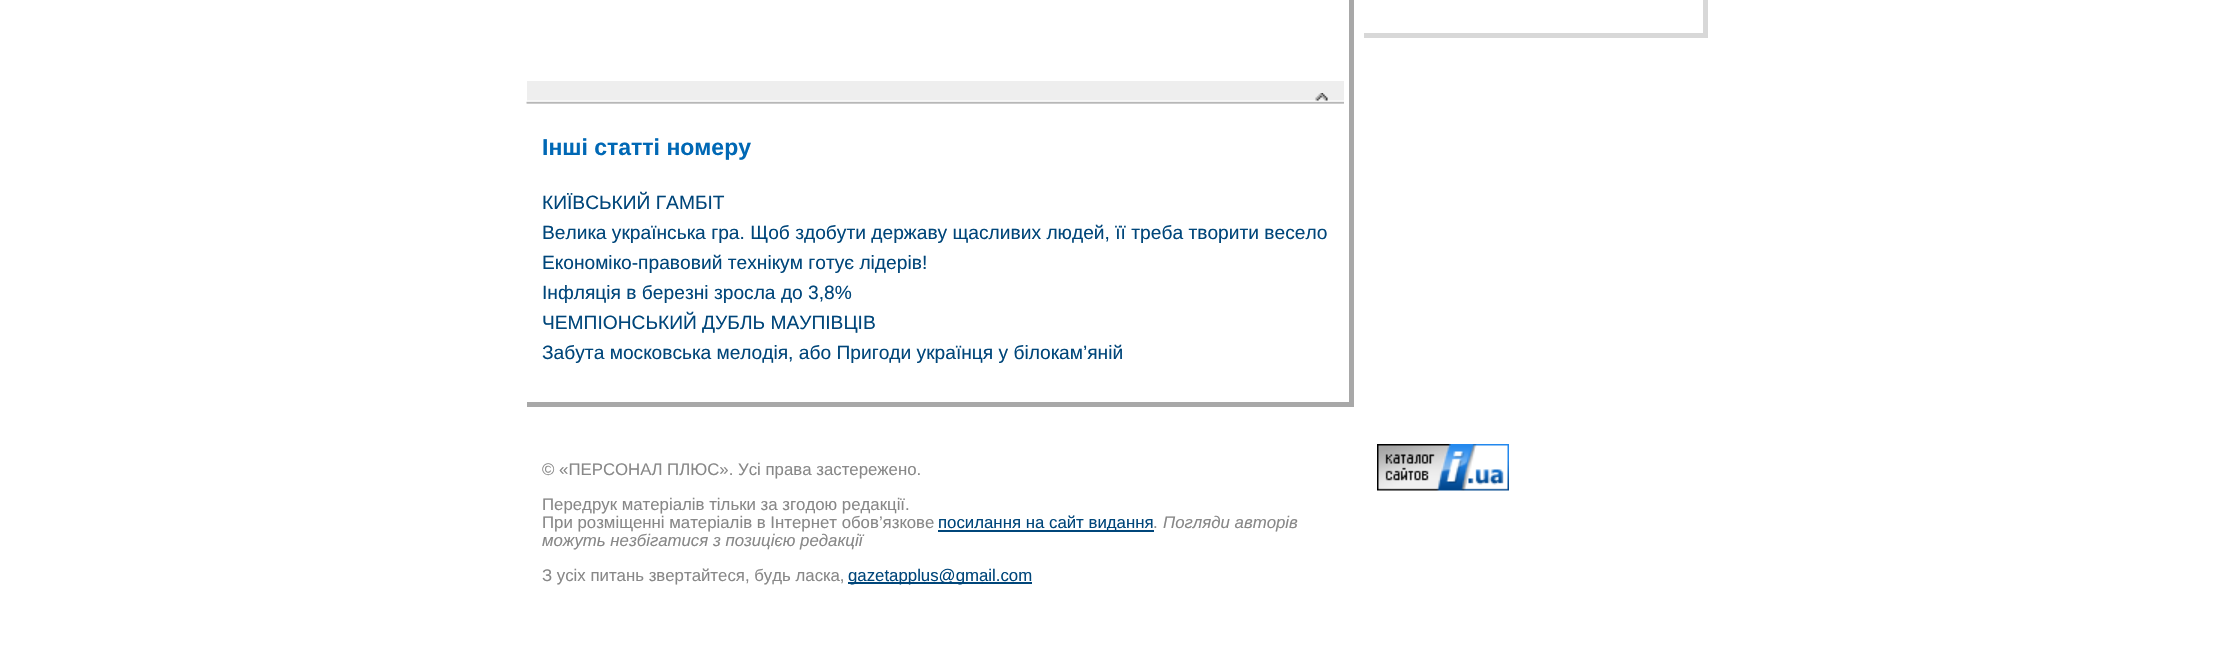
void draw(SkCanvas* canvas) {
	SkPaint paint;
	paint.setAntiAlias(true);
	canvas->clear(0xffffffff);
	paint.setColor(0xffa8a8a8);
	canvas->drawRect(SkRect::MakeXYWH(1349, 0, 5, 407), paint);
	paint.setColor(0xffd8d8d8);
	canvas->drawRect(SkRect::MakeXYWH(1703, 0, 5, 38), paint);
	canvas->drawRect(SkRect::MakeXYWH(1364, 33, 343, 5), paint);
	paint.setColor(0xffa8a8a8);
	canvas->drawRect(SkRect::MakeXYWH(527, 402, 822, 5), paint);
	paint.setColor(0xffeeeeee);
	canvas->drawRect(SkRect::MakeXYWH(527, 81, 817, 23), paint);
	canvas->drawImageRect(SkImages::DeferredFromEncodedData(SkData::MakeFromFileName("img1.png")), SkRect::MakeXYWH(526, 100, 818, 4), SkSamplingOptions());
	canvas->drawImageRect(SkImages::DeferredFromEncodedData(SkData::MakeFromFileName("img2.png")), SkRect::MakeXYWH(1315, 93, 13, 8), SkSamplingOptions());
	SkFont f1(fontMgr->matchFamilyStyle("Liberation Sans", SkFontStyle::Bold()), 23);
	f1.setSubpixel(true);
	paint.setColor(0xff0068b5);
	canvas->drawString("Інші статті номеру", 542, 155, f1, paint);
	SkFont f2(fontMgr->matchFamilyStyle("Liberation Sans", SkFontStyle::Normal()), 19.2);
	f2.setSubpixel(true);
	paint.setColor(0xff00467a);
	canvas->drawString("КИЇВСЬКИЙ ГАМБІТ", 542, 209, f2, paint);
	canvas->drawString("Велика українська гра. Щоб здобути державу щасливих людей, її треба творити весело", 542, 239, f2, paint);
	canvas->drawString("Економіко-правовий технікум готує лідерів!", 542, 269, f2, paint);
	canvas->drawString("Інфляція в березні зросла до 3,8%", 542, 299, f2, paint);
	canvas->drawString("ЧЕМПІОНСЬКИЙ ДУБЛЬ МАУПІВЦІВ", 542, 329, f2, paint);
	canvas->drawString("Забута московська мелодія, або Пригоди українця у білокам’яній", 542, 359, f2, paint);
	SkFont f3(fontMgr->matchFamilyStyle("Liberation Sans", SkFontStyle::Normal()), 16.8);
	f3.setSubpixel(true);
	paint.setColor(0xff888888);
	canvas->drawString("© «ПЕРСОНАЛ ПЛЮС». Усі права застережено.", 542, 475, f3, paint);
	canvas->drawString("Передрук матеріалів тільки за згодою редакції.", 542, 510, f3, paint);
	canvas->drawString("При розміщенні матеріалів в Інтернет обов’язкове", 542, 528, f3, paint);
	paint.setColor(0xff00467a);
	canvas->drawRect(SkRect::MakeXYWH(938, 530, 216, 2), paint);
	canvas->drawString("посилання на сайт видання", 938, 528, f3, paint);
	paint.setColor(0xff888888);
	canvas->drawString(".", 1153, 528, f3, paint);
	SkFont f4(fontMgr->matchFamilyStyle("Liberation Sans", SkFontStyle::Italic()), 16.8);
	f4.setSubpixel(true);
	canvas->drawString("Погляди авторів", 1163, 528, f4, paint);
	canvas->drawString("можуть незбігатися з позицією редакції", 542, 546, f4, paint);
	canvas->drawString("З усіх питань звертайтеся, будь ласка,", 542, 581, f3, paint);
	paint.setColor(0xff00467a);
	canvas->drawRect(SkRect::MakeXYWH(848, 582, 184, 2), paint);
	canvas->drawString("gazetapplus@gmail.com", 848, 581, f3, paint);
	canvas->drawImageRect(SkImages::DeferredFromEncodedData(SkData::MakeFromFileName("img3.png")), SkRect::MakeXYWH(1377, 444, 132, 47), SkSamplingOptions());
}
